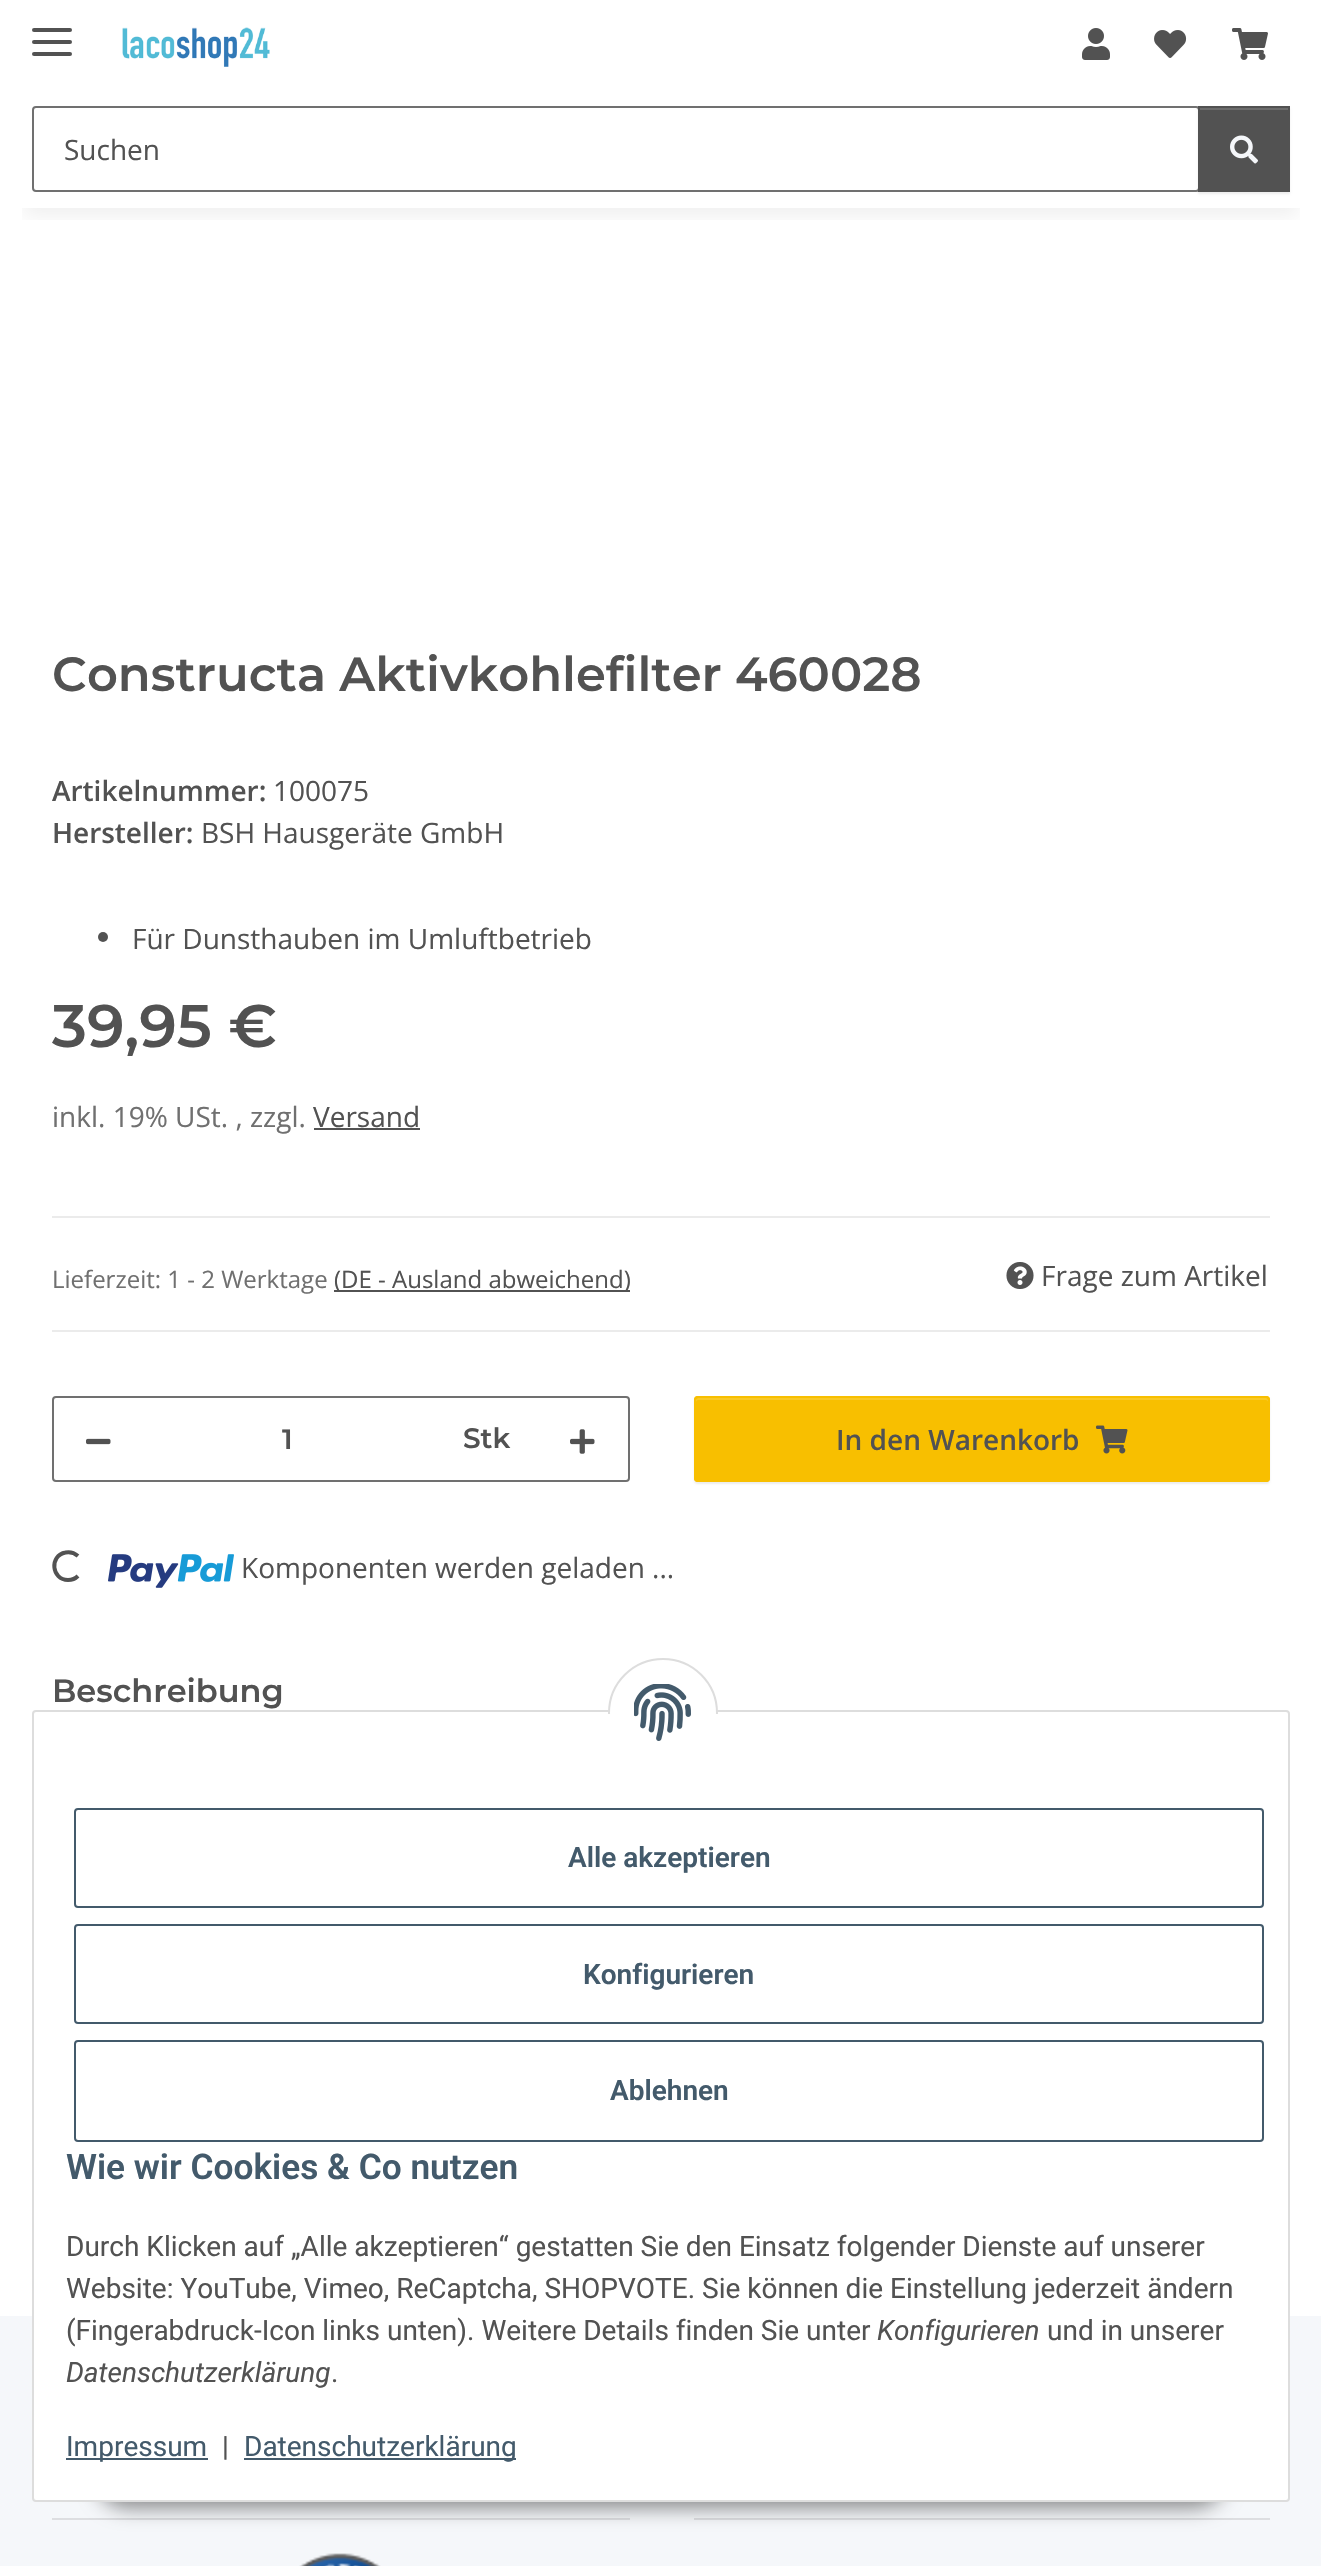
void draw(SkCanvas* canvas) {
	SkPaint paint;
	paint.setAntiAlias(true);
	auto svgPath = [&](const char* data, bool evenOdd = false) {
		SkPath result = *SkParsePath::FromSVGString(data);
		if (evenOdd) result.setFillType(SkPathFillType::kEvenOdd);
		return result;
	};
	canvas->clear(0xfff5f7fa);
	paint.setColor(0xffffffff);
	canvas->drawRect(SkRect::MakeXYWH(0, 0, 1321, 2316), paint);
	canvas->save();
	canvas->clipRect(SkRect::MakeXYWH(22, 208, 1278, 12));
	paint.setColor(0x0f000000);
	paint.setMaskFilter(SkMaskFilter::MakeBlur(kNormal_SkBlurStyle, 9));
	canvas->drawRect(SkRect::MakeXYWH(24, 56, 1274, 160), paint);
	paint.setMaskFilter(nullptr);
	canvas->restore();
	paint.setColor(0xff525252);
	canvas->drawRoundRect(SkRect::MakeXYWH(32, 40, 40, 4), 2, 2, paint);
	canvas->drawRoundRect(SkRect::MakeXYWH(32, 28, 40, 4), 2, 2, paint);
	canvas->drawRoundRect(SkRect::MakeXYWH(32, 52, 40, 4), 2, 2, paint);
	canvas->drawImageRect(SkImages::DeferredFromEncodedData(SkData::MakeFromFileName("img1.png")), SkRect::MakeXYWH(122, 27, 148, 40), SkSamplingOptions());
	canvas->drawImageRect(SkImages::DeferredFromEncodedData(SkData::MakeFromFileName("img2.png")), SkRect::MakeXYWH(1082, 28, 28, 32), SkSamplingOptions());
	canvas->drawImageRect(SkImages::DeferredFromEncodedData(SkData::MakeFromFileName("img3.png")), SkRect::MakeXYWH(1154, 30, 33, 28), SkSamplingOptions());
	canvas->drawImageRect(SkImages::DeferredFromEncodedData(SkData::MakeFromFileName("img4.png")), SkRect::MakeXYWH(1232, 28, 36, 32), SkSamplingOptions());
	paint.setStroke(true);
	paint.setStrokeWidth(2);
	paint.setColor(0xff707070);
	canvas->drawRoundRect(SkRect::MakeXYWH(33, 107, 1166, 84), 3, 3, paint);
	SkFont f1(fontMgr->matchFamilyStyle("Open Sans", SkFontStyle::Normal()), 28);
	f1.setSubpixel(true);
	paint.setStroke(false);
	paint.setColor(0xff525252);
	canvas->drawString("Suchen", 64, 160, f1, paint);
	paint.setColor(0x12000000);
	paint.setMaskFilter(SkMaskFilter::MakeBlur(kNormal_SkBlurStyle, 1));
	canvas->drawRect(SkRect::MakeXYWH(1198, 108, 92, 86), paint);
	paint.setMaskFilter(nullptr);
	paint.setColor(0xff525252);
	canvas->drawRect(SkRect::MakeXYWH(1198, 106, 92, 86), paint);
	paint.setColor(0xff6c6c6c);
	canvas->drawRect(SkRect::MakeXYWH(1200, 108, 88, 2), paint);
	canvas->drawImageRect(SkImages::DeferredFromEncodedData(SkData::MakeFromFileName("img5.png")), SkRect::MakeXYWH(1230, 135, 28, 29), SkSamplingOptions());
	SkFont f2(fontMgr->matchFamilyStyle("Montserrat", SkFontStyle(600, SkFontStyle::kNormal_Width, SkFontStyle::kUpright_Slant)), 48);
	f2.setSubpixel(true);
	paint.setColor(0xff525252);
	canvas->drawString("Constructa Aktivkohlefilter 460028", 52, 691, f2, paint);
	SkFont f3(fontMgr->matchFamilyStyle("Open Sans", SkFontStyle(600, SkFontStyle::kNormal_Width, SkFontStyle::kUpright_Slant)), 28);
	f3.setSubpixel(true);
	canvas->drawString("Artikelnummer:", 52, 801, f3, paint);
	canvas->drawString("100075", 273, 801, f1, paint);
	canvas->drawString("Hersteller:", 52, 843, f3, paint);
	canvas->drawString("BSH Hausgeräte GmbH", 201, 843, f1, paint);
	canvas->drawCircle(103, 937, 5, paint);
	canvas->drawString("Für Dunsthauben im Umluftbetrieb", 132, 949, f1, paint);
	SkFont f4(fontMgr->matchFamilyStyle("Montserrat", SkFontStyle(600, SkFontStyle::kNormal_Width, SkFontStyle::kUpright_Slant)), 60);
	f4.setSubpixel(true);
	canvas->drawString("39,95 €", 52, 1047, f4, paint);
	paint.setColor(0xff707070);
	canvas->drawString("inkl. 19% USt. , zzgl.", 52, 1127, f1, paint);
	paint.setColor(0xff525252);
	canvas->drawString("Versand", 313, 1127, f1, paint);
	canvas->drawRect(SkRect::MakeXYWH(314, 1128, 106, 2), paint);
	paint.setColor(0xffebebeb);
	canvas->drawRect(SkRect::MakeXYWH(52, 1216, 1218, 2), paint);
	canvas->drawRect(SkRect::MakeXYWH(52, 1330, 1218, 2), paint);
	SkFont f5(fontMgr->matchFamilyStyle("Open Sans", SkFontStyle::Normal()), 24);
	f5.setSubpixel(true);
	paint.setColor(0xff707070);
	canvas->drawString("Lieferzeit: 1 - 2 Werktage", 52, 1288, f5, paint);
	paint.setColor(0xff525252);
	canvas->drawRect(SkRect::MakeXYWH(334, 1290, 296, 2), paint);
	canvas->drawString("(DE - Ausland abweichend)", 334, 1288, f5, paint);
	canvas->drawImageRect(SkImages::DeferredFromEncodedData(SkData::MakeFromFileName("img6.png")), SkRect::MakeXYWH(1006, 1262, 28, 27), SkSamplingOptions());
	canvas->drawString("Frage zum Artikel", 1041, 1286, f1, paint);
	paint.setStroke(true);
	paint.setColor(0xff707070);
	canvas->drawRoundRect(SkRect::MakeXYWH(53, 1397, 576, 84), 3, 3, paint);
	canvas->drawImageRect(SkImages::DeferredFromEncodedData(SkData::MakeFromFileName("img7.png")), SkRect::MakeXYWH(86, 1438, 25, 7), SkSamplingOptions());
	SkFont f6(fontMgr->matchFamilyStyle("Montserrat", SkFontStyle(600, SkFontStyle::kNormal_Width, SkFontStyle::kUpright_Slant)), 28);
	f6.setSubpixel(true);
	paint.setStroke(false);
	paint.setColor(0xff525252);
	canvas->drawString("1", 282, 1449, f6, paint);
	canvas->drawString("Stk", 463, 1448, f6, paint);
	canvas->drawImageRect(SkImages::DeferredFromEncodedData(SkData::MakeFromFileName("img8.png")), SkRect::MakeXYWH(570, 1429, 25, 25), SkSamplingOptions());
	paint.setColor(0x12000000);
	paint.setMaskFilter(SkMaskFilter::MakeBlur(kNormal_SkBlurStyle, 1));
	canvas->drawRoundRect(SkRect::MakeXYWH(694, 1398, 576, 86), 4, 4, paint);
	paint.setMaskFilter(nullptr);
	paint.setColor(0xfff8bf00);
	canvas->drawRoundRect(SkRect::MakeXYWH(694, 1396, 576, 86), 4, 4, paint);
	paint.setColor(0xfff9c926);
	canvas->drawPath(svgPath("M698 1400H1266C1267 1400 1268 1401 1268 1402C1268 1400 1268 1398 1266 1398H698L696 1399V1402C696 1401 697 1400 698 1400Z"), paint);
	paint.setStroke(true);
	paint.setColor(0xfff8bf00);
	canvas->drawRoundRect(SkRect::MakeXYWH(695, 1397, 574, 84), 3, 3, paint);
	paint.setStroke(false);
	paint.setColor(0xff525252);
	canvas->drawString("In den Warenkorb", 836, 1450, f3, paint);
	canvas->drawImageRect(SkImages::DeferredFromEncodedData(SkData::MakeFromFileName("img9.png")), SkRect::MakeXYWH(1096, 1425, 32, 29), SkSamplingOptions());
	paint.setStroke(true);
	paint.setStrokeWidth(4);
	canvas->drawPath(svgPath("M78 1576C75.5 1578.5 71.5 1580 68 1580C51.5 1580 49 1555.5 65.5 1552.5C70 1551.5 74.5 1553 78 1556"), paint);
	canvas->drawImageRect(SkImages::DeferredFromEncodedData(SkData::MakeFromFileName("img10.png")), SkRect::MakeXYWH(108, 1554, 126, 34), SkSamplingOptions());
	paint.setStroke(false);
	canvas->drawString("Komponenten werden geladen ...", 241, 1578, f1, paint);
	SkFont f7(fontMgr->matchFamilyStyle("Montserrat", SkFontStyle(600, SkFontStyle::kNormal_Width, SkFontStyle::kUpright_Slant)), 32);
	f7.setSubpixel(true);
	canvas->drawString("Beschreibung", 52, 1702, f7, paint);
	paint.setColor(0xffdddee1);
	canvas->drawRect(SkRect::MakeXYWH(52, 2518, 578, 2), paint);
	canvas->drawRect(SkRect::MakeXYWH(694, 2518, 576, 2), paint);
	paint.setColor(0x73000000);
	paint.setMaskFilter(SkMaskFilter::MakeBlur(kNormal_SkBlurStyle, 10));
	canvas->drawRoundRect(SkRect::MakeXYWH(96, 2444, 1130, 64), 32, 32, paint);
	paint.setMaskFilter(nullptr);
	paint.setColor(0xffffffff);
	canvas->drawRoundRect(SkRect::MakeXYWH(33, 1711, 1256, 790), 3, 3, paint);
	paint.setStroke(true);
	paint.setStrokeWidth(2);
	paint.setColor(0xffdddddd);
	canvas->drawRoundRect(SkRect::MakeXYWH(33, 1711, 1256, 790), 3, 3, paint);
	paint.setStroke(false);
	paint.setColor(0xffffffff);
	canvas->drawCircle(663, 1713, 54, paint);
	paint.setStroke(true);
	paint.setColor(0xffdddddd);
	canvas->drawCircle(663, 1713, 54, paint);
	paint.setStroke(false);
	paint.setColor(0xffffffff);
	canvas->drawRect(SkRect::MakeXYWH(608, 1714, 110, 54), paint);
	canvas->drawImageRect(SkImages::DeferredFromEncodedData(SkData::MakeFromFileName("img11.png")), SkRect::MakeXYWH(634, 1684, 57, 57), SkSamplingOptions());
	paint.setStroke(true);
	paint.setColor(0xff435a6b);
	canvas->drawRoundRect(SkRect::MakeXYWH(75, 1809, 1188, 98), 3, 3, paint);
	SkFont f8(fontMgr->matchFamilyStyle("Roboto", SkFontStyle(600, SkFontStyle::kNormal_Width, SkFontStyle::kUpright_Slant)), 28);
	f8.setSubpixel(true);
	paint.setStroke(false);
	canvas->drawString("Alle akzeptieren", 568, 1867, f8, paint);
	paint.setStroke(true);
	canvas->drawRoundRect(SkRect::MakeXYWH(75, 1925, 1188, 98), 3, 3, paint);
	paint.setStroke(false);
	canvas->drawString("Konfigurieren", 583, 1984, f8, paint);
	paint.setStroke(true);
	canvas->drawRoundRect(SkRect::MakeXYWH(75, 2041, 1188, 100), 3, 3, paint);
	paint.setStroke(false);
	canvas->drawString("Ablehnen", 610, 2100, f8, paint);
	SkFont f9(fontMgr->matchFamilyStyle("Roboto", SkFontStyle(600, SkFontStyle::kNormal_Width, SkFontStyle::kUpright_Slant)), 35.25);
	f9.setSubpixel(true);
	canvas->drawString("Wie wir Cookies & Co nutzen", 66, 2179, f9, paint);
	SkFont f10(fontMgr->matchFamilyStyle("Roboto", SkFontStyle::Normal()), 28);
	f10.setSubpixel(true);
	paint.setColor(0xff525252);
	canvas->drawString("Durch Klicken auf „Alle akzeptieren“ gestatten Sie den Einsatz folgender Dienste auf unserer", 66, 2256, f10, paint);
	canvas->drawString("Website: YouTube, Vimeo, ReCaptcha, SHOPVOTE. Sie können die Einstellung jederzeit ändern", 66, 2298, f10, paint);
	canvas->drawString("(Fingerabdruck-Icon links unten). Weitere Details finden Sie unter", 66, 2340, f10, paint);
	SkFont f11(fontMgr->matchFamilyStyle("Roboto", SkFontStyle::Italic()), 28);
	f11.setSubpixel(true);
	canvas->drawString("Konfigurieren", 877, 2340, f11, paint);
	canvas->drawString("und in unserer", 1047, 2340, f10, paint);
	canvas->drawString("Datenschutzerklärung", 66, 2382, f11, paint);
	canvas->drawString(".", 331, 2382, f10, paint);
	paint.setColor(0xff435a6b);
	canvas->drawRect(SkRect::MakeXYWH(66, 2458, 142, 2), paint);
	canvas->drawString("Impressum", 66, 2456, f10, paint);
	paint.setColor(0xff525252);
	canvas->drawString("|", 222, 2456, f10, paint);
	paint.setColor(0xff435a6b);
	canvas->drawRect(SkRect::MakeXYWH(244, 2458, 272, 2), paint);
	canvas->drawString("Datenschutzerklärung", 244, 2456, f10, paint);
	canvas->drawImageRect(SkImages::DeferredFromEncodedData(SkData::MakeFromFileName("img12.png")), SkRect::MakeXYWH(299, 2553, 82, 13), SkSamplingOptions());
}
